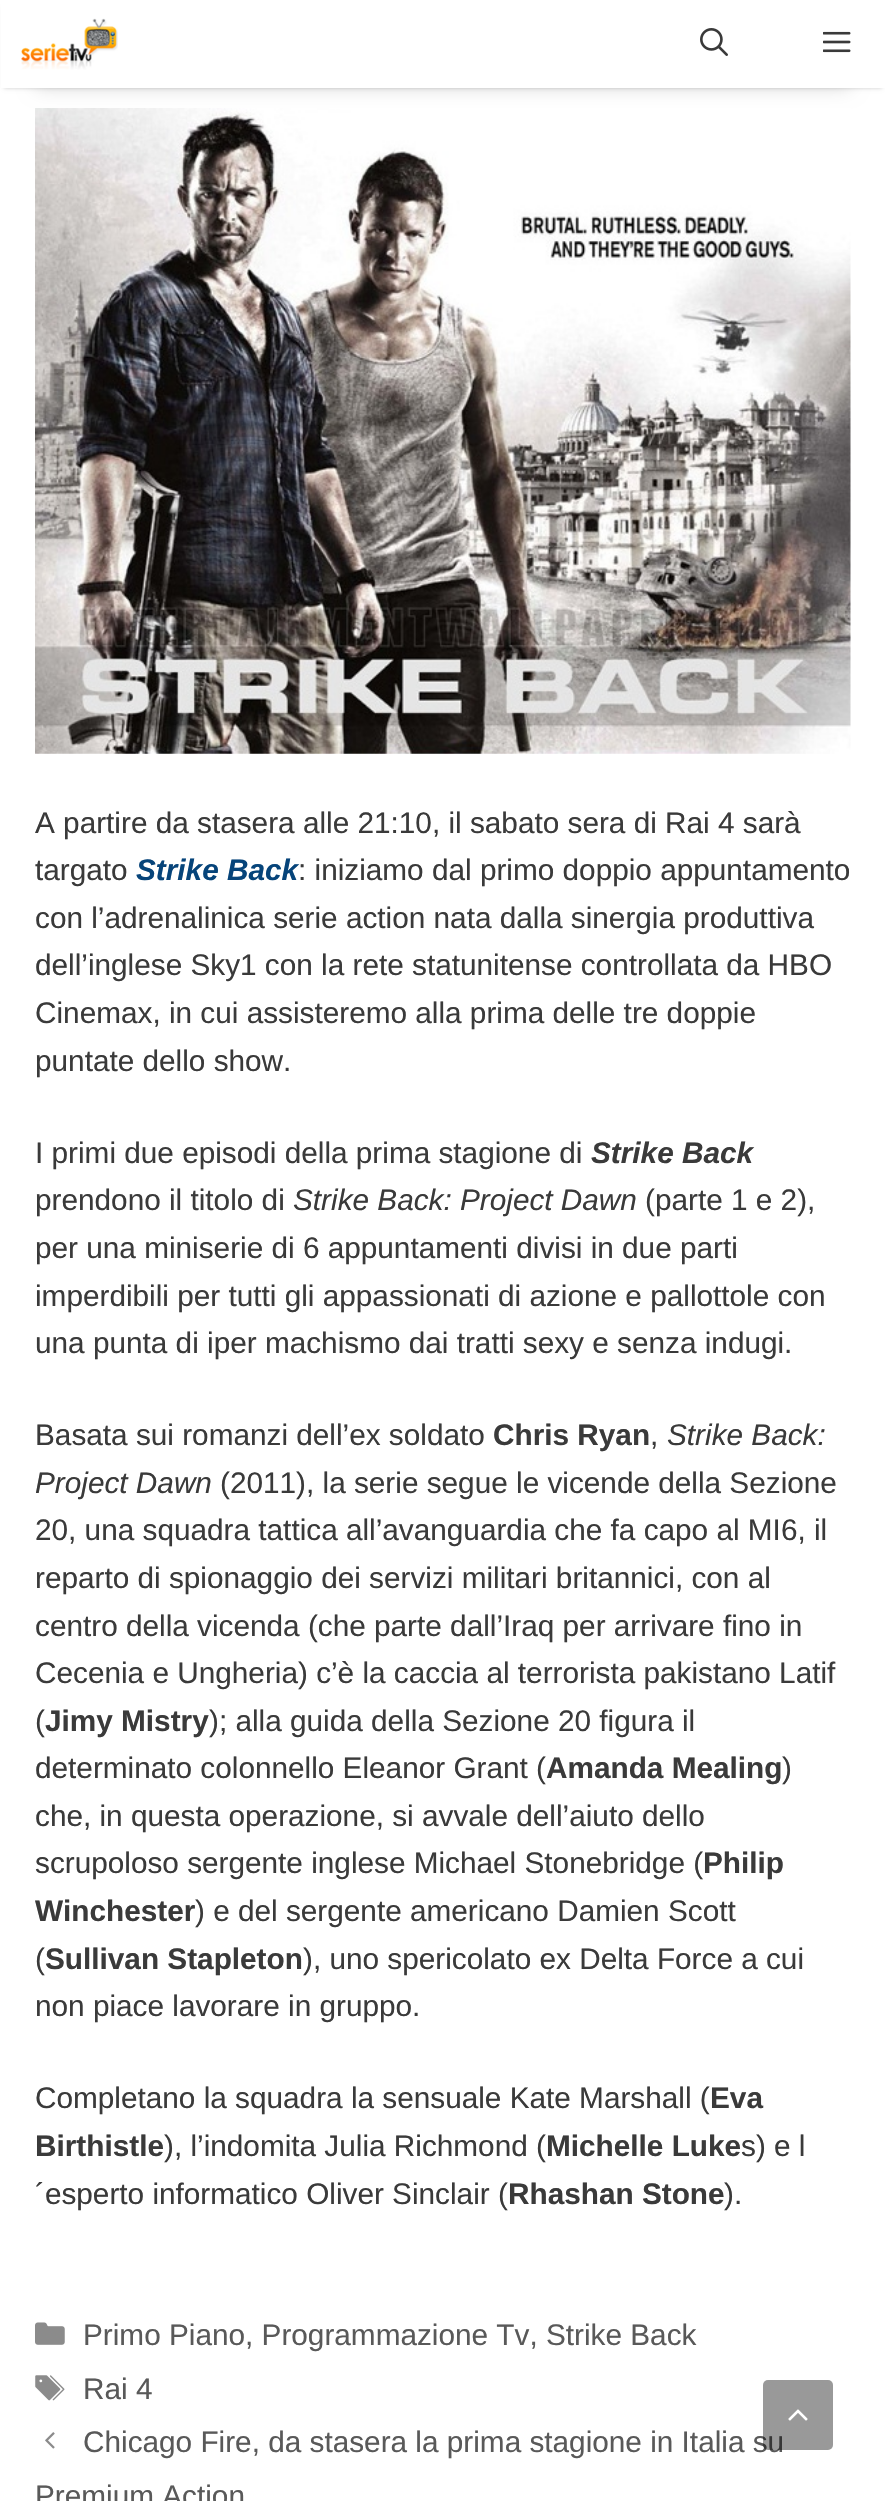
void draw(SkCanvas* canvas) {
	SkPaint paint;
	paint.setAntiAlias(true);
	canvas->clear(0xffffffff);
	paint.setColor(0x33000000);
	paint.setMaskFilter(SkMaskFilter::MakeBlur(kNormal_SkBlurStyle, 2));
	canvas->drawRect(SkRect::MakeXYWH(4, 7, 878, 81), paint);
	paint.setMaskFilter(nullptr);
	paint.setColor(0x1f000000);
	paint.setMaskFilter(SkMaskFilter::MakeBlur(kNormal_SkBlurStyle, 9));
	canvas->drawRoundRect(SkRect::MakeXYWH(35, -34, 816, 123), 7, 7, paint);
	paint.setMaskFilter(nullptr);
	paint.setColor(0xffffffff);
	canvas->drawRect(SkRect::MakeXYWH(1, 0, 884, 88), paint);
	canvas->drawImageRect(SkImages::DeferredFromEncodedData(SkData::MakeFromFileName("img1.png")), SkRect::MakeXYWH(21, 18, 97, 52), SkSamplingOptions());
	canvas->drawImageRect(SkImages::DeferredFromEncodedData(SkData::MakeFromFileName("img2.png")), SkRect::MakeXYWH(700, 28, 28, 28), SkSamplingOptions());
	canvas->drawImageRect(SkImages::DeferredFromEncodedData(SkData::MakeFromFileName("img3.png")), SkRect::MakeXYWH(823, 31, 28, 22), SkSamplingOptions());
	canvas->drawImageRect(SkImages::DeferredFromEncodedData(SkData::MakeFromFileName("img4.png")), SkRect::MakeXYWH(35, 108, 816, 646), SkSamplingOptions());
	SkFont f1(fontMgr->matchFamilyStyle("Liberation Sans", SkFontStyle::Normal()), 29.75);
	f1.setSubpixel(true);
	paint.setColor(0xff3a3a3a);
	canvas->drawString("A partire da stasera alle 21:10, il sabato sera di Rai 4 sarà", 35, 833, f1, paint);
	canvas->drawString("targato", 35, 880, f1, paint);
	SkFont f2(fontMgr->matchFamilyStyle("Liberation Sans", SkFontStyle::BoldItalic()), 29.75);
	f2.setSubpixel(true);
	paint.setColor(0xff06447a);
	canvas->drawString("Strike Back", 136, 880, f2, paint);
	paint.setColor(0xff3a3a3a);
	canvas->drawString(": iniziamo dal primo doppio appuntamento", 298, 880, f1, paint);
	canvas->drawString("con l’adrenalinica serie action nata dalla sinergia produttiva", 35, 928, f1, paint);
	canvas->drawString("dell’inglese Sky1 con la rete statunitense controllata da HBO", 35, 975, f1, paint);
	canvas->drawString("Cinemax, in cui assisteremo alla prima delle tre doppie", 35, 1023, f1, paint);
	canvas->drawString("puntate dello show.", 35, 1071, f1, paint);
	canvas->drawString("I primi due episodi della prima stagione di", 35, 1163, f1, paint);
	canvas->drawString("Strike Back", 591, 1163, f2, paint);
	canvas->drawString("prendono il titolo di", 35, 1210, f1, paint);
	SkFont f3(fontMgr->matchFamilyStyle("Liberation Sans", SkFontStyle::Italic()), 29.75);
	f3.setSubpixel(true);
	canvas->drawString("Strike Back: Project Dawn", 293, 1210, f3, paint);
	canvas->drawString("(parte 1 e 2),", 645, 1210, f1, paint);
	canvas->drawString("per una miniserie di 6 appuntamenti divisi in due parti", 35, 1258, f1, paint);
	canvas->drawString("imperdibili per tutti gli appassionati di azione e pallottole con", 35, 1306, f1, paint);
	canvas->drawString("una punta di iper machismo dai tratti sexy e senza indugi.", 35, 1353, f1, paint);
	canvas->drawString("Basata sui romanzi dell’ex soldato", 35, 1445, f1, paint);
	SkFont f4(fontMgr->matchFamilyStyle("Liberation Sans", SkFontStyle::Bold()), 29.75);
	f4.setSubpixel(true);
	canvas->drawString("Chris Ryan", 493, 1445, f4, paint);
	canvas->drawString(",", 650, 1445, f1, paint);
	canvas->drawString("Strike Back:", 667, 1445, f3, paint);
	canvas->drawString("Project Dawn", 35, 1493, f3, paint);
	canvas->drawString("(2011), la serie segue le vicende della Sezione", 220, 1493, f1, paint);
	canvas->drawString("20, una squadra tattica all’avanguardia che fa capo al MI6, il", 35, 1540, f1, paint);
	canvas->drawString("reparto di spionaggio dei servizi militari britannici, con al", 35, 1588, f1, paint);
	canvas->drawString("centro della vicenda (che parte dall’Iraq per arrivare fino in", 35, 1636, f1, paint);
	canvas->drawString("Cecenia e Ungheria) c’è la caccia al terrorista pakistano Latif", 35, 1683, f1, paint);
	canvas->drawString("(", 35, 1731, f1, paint);
	canvas->drawString("Jimy Mistry", 45, 1731, f4, paint);
	canvas->drawString("); alla guida della Sezione 20 figura il", 209, 1731, f1, paint);
	canvas->drawString("determinato colonnello Eleanor Grant (", 35, 1778, f1, paint);
	canvas->drawString("Amanda Mealing", 546, 1778, f4, paint);
	canvas->drawString(")", 782, 1778, f1, paint);
	canvas->drawString("che, in questa operazione, si avvale dell’aiuto dello", 35, 1826, f1, paint);
	canvas->drawString("scrupoloso sergente inglese Michael Stonebridge (", 35, 1873, f1, paint);
	canvas->drawString("Philip", 703, 1873, f4, paint);
	canvas->drawString("Winchester", 35, 1921, f4, paint);
	canvas->drawString(") e del sergente americano Damien Scott", 195, 1921, f1, paint);
	canvas->drawString("(", 35, 1969, f1, paint);
	canvas->drawString("Sullivan Stapleton", 45, 1969, f4, paint);
	canvas->drawString("), uno spericolato ex Delta Force a cui", 303, 1969, f1, paint);
	canvas->drawString("non piace lavorare in gruppo.", 35, 2016, f1, paint);
	canvas->drawString("Completano la squadra la sensuale Kate Marshall (", 35, 2108, f1, paint);
	canvas->drawString("Eva", 710, 2108, f4, paint);
	canvas->drawString("Birthistle", 35, 2156, f4, paint);
	canvas->drawString("), l’indomita Julia Richmond (", 164, 2156, f1, paint);
	canvas->drawString("Michelle Luke", 546, 2156, f4, paint);
	canvas->drawString("s) e l", 741, 2156, f1, paint);
	canvas->drawString("´esperto informatico Oliver Sinclair (", 35, 2204, f1, paint);
	canvas->drawString("Rhashan Stone", 508, 2204, f4, paint);
	canvas->drawString(").", 724, 2204, f1, paint);
	canvas->drawImageRect(SkImages::DeferredFromEncodedData(SkData::MakeFromFileName("img5.png")), SkRect::MakeXYWH(35, 2322, 30, 23), SkSamplingOptions());
	paint.setColor(0xff595959);
	canvas->drawString("Primo Piano, Programmazione Tv, Strike Back", 83, 2345, f1, paint);
	canvas->drawImageRect(SkImages::DeferredFromEncodedData(SkData::MakeFromFileName("img6.png")), SkRect::MakeXYWH(35, 2375, 30, 26), SkSamplingOptions());
	canvas->drawString("Rai 4", 83, 2399, f1, paint);
	canvas->drawImageRect(SkImages::DeferredFromEncodedData(SkData::MakeFromFileName("img7.png")), SkRect::MakeXYWH(45, 2432, 10, 17), SkSamplingOptions());
	canvas->drawString("Chicago Fire, da stasera la prima stagione in Italia su", 83, 2452, f1, paint);
	canvas->drawString("Premium Action", 35, 2506, f1, paint);
	paint.setColor(0x66000000);
	canvas->drawRoundRect(SkRect::MakeXYWH(763, 2380, 70, 70), 5, 5, paint);
	canvas->drawImageRect(SkImages::DeferredFromEncodedData(SkData::MakeFromFileName("img8.png")), SkRect::MakeXYWH(788, 2409, 20, 12), SkSamplingOptions());
}
